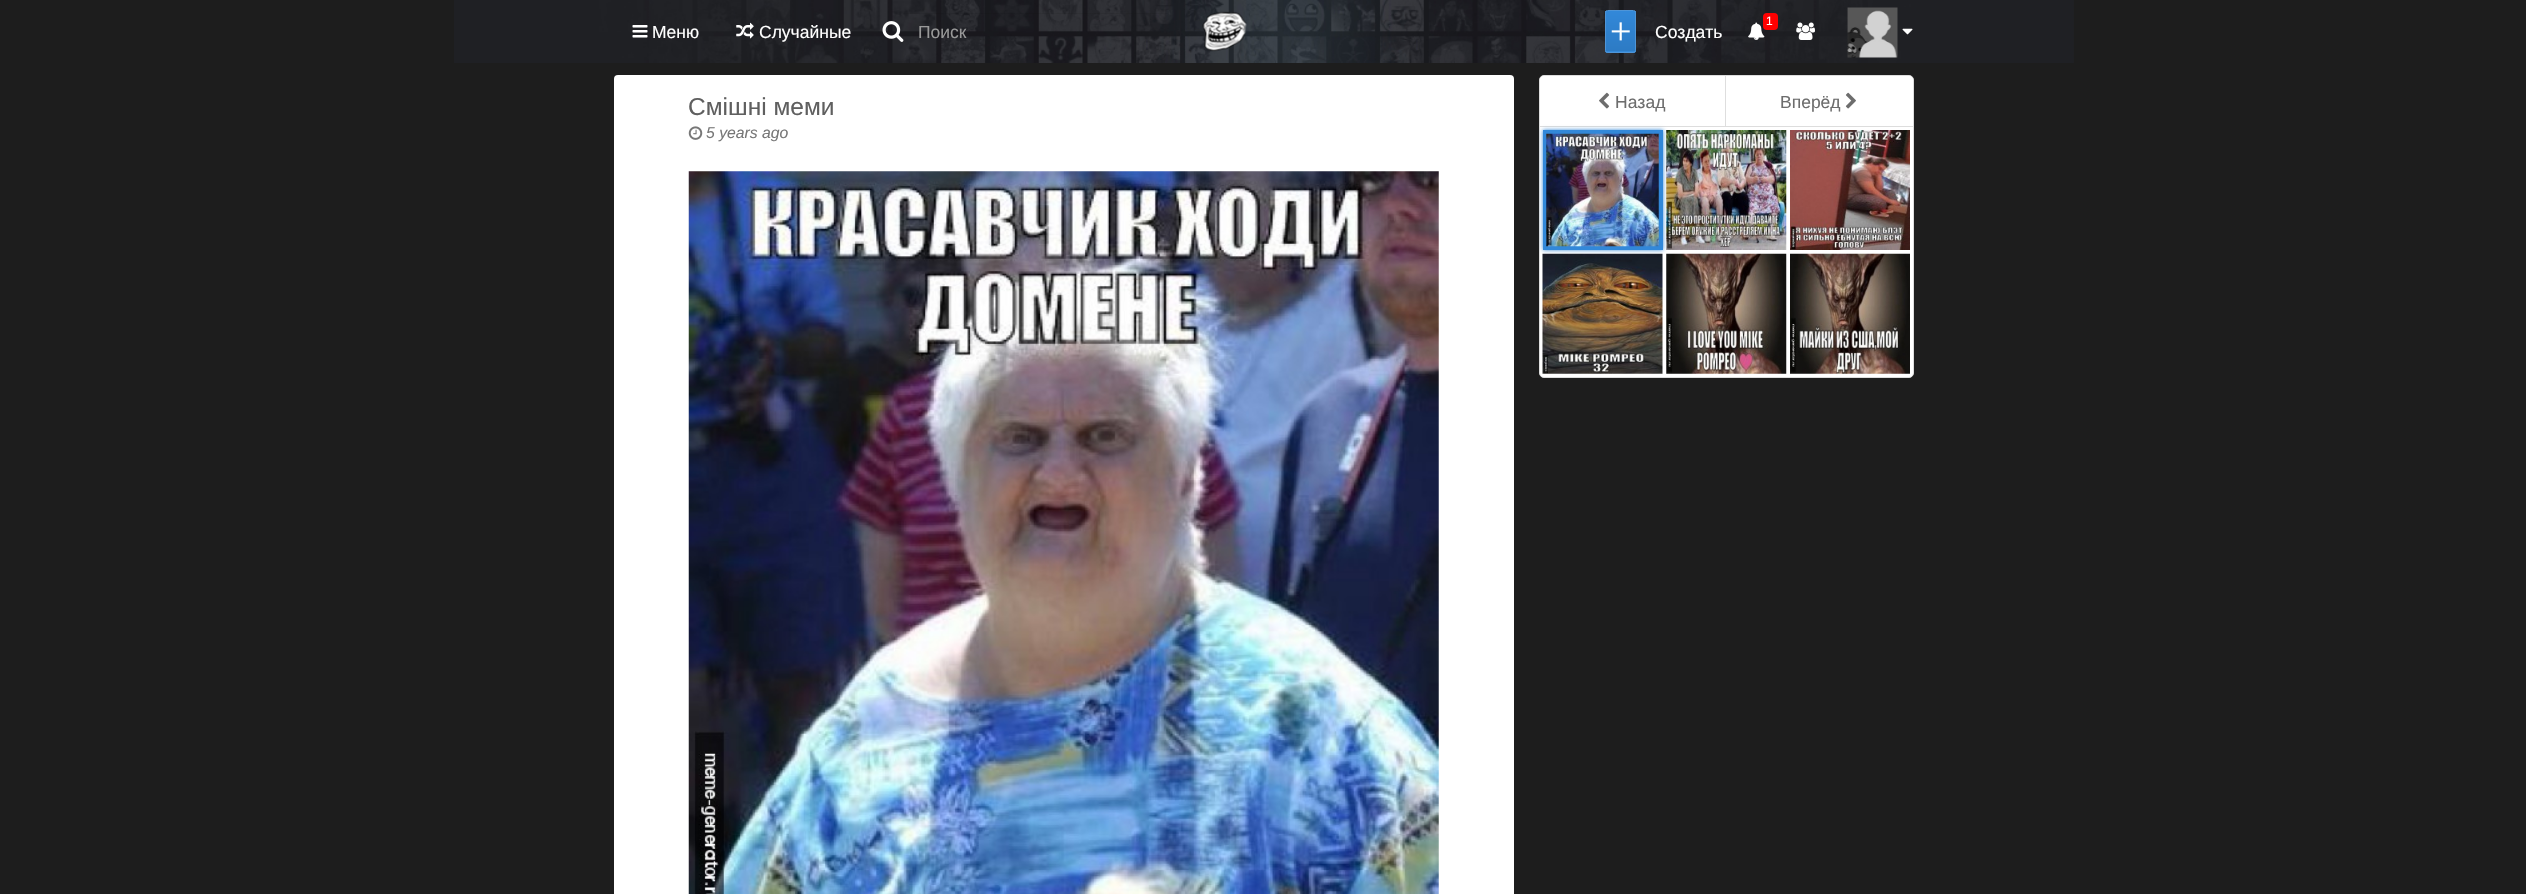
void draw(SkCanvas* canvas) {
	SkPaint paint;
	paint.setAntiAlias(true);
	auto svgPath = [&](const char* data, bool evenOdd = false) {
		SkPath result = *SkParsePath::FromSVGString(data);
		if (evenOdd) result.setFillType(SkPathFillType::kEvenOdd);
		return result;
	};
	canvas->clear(0xff1d1d1d);
	canvas->drawImageRect(SkImages::DeferredFromEncodedData(SkData::MakeFromFileName("img1.png")), SkRect::MakeXYWH(454, 0, 1620, 63), SkSamplingOptions());
	canvas->drawImageRect(SkImages::DeferredFromEncodedData(SkData::MakeFromFileName("img2.png")), SkRect::MakeXYWH(1202, 11, 45, 41), SkSamplingOptions());
	canvas->drawImageRect(SkImages::DeferredFromEncodedData(SkData::MakeFromFileName("img3.png")), SkRect::MakeXYWH(632, 25, 16, 13), SkSamplingOptions());
	SkFont f1(fontMgr->matchFamilyStyle("Liberation Sans", SkFontStyle::Normal()), 17.5);
	f1.setSubpixel(true);
	paint.setColor(0xffffffff);
	canvas->drawString("Меню", 652, 38, f1, paint);
	canvas->drawImageRect(SkImages::DeferredFromEncodedData(SkData::MakeFromFileName("img4.png")), SkRect::MakeXYWH(736, 22, 18, 17), SkSamplingOptions());
	canvas->drawString("Случайные", 759, 38, f1, paint);
	canvas->drawImageRect(SkImages::DeferredFromEncodedData(SkData::MakeFromFileName("img5.png")), SkRect::MakeXYWH(882, 21, 22, 21), SkSamplingOptions());
	paint.setColor(0x12000000);
	canvas->drawPath(svgPath("M903 13V14H1166C1169 14 1171 16 1171 19C1171 16 1169 13 1166 13Z"), paint);
	paint.setColor(0xff999999);
	canvas->drawString("Поиск", 918, 38, f1, paint);
	canvas->drawImageRect(SkImages::DeferredFromEncodedData(SkData::MakeFromFileName("img6.png")), SkRect::MakeXYWH(1748, 22, 17, 18), SkSamplingOptions());
	paint.setColor(0xffff0000);
	canvas->drawRoundRect(SkRect::MakeXYWH(1763, 13, 15, 17), 4, 4, paint);
	SkFont f2(fontMgr->matchFamilyStyle("Liberation Sans", SkFontStyle::Normal()), 12);
	f2.setSubpixel(true);
	paint.setColor(0xffffffff);
	canvas->drawString("1", 1766, 25, f2, paint);
	canvas->drawImageRect(SkImages::DeferredFromEncodedData(SkData::MakeFromFileName("img7.png")), SkRect::MakeXYWH(1847, 7, 51, 51), SkSamplingOptions());
	canvas->drawImageRect(SkImages::DeferredFromEncodedData(SkData::MakeFromFileName("img8.png")), SkRect::MakeXYWH(1902, 28, 11, 7), SkSamplingOptions());
	{
		const SkColor colors[] = {0xff3288d9, 0xff2d7bc4};
		const float stops[] = {0, 1};
		const SkPoint ends[] = {{1621, 11}, {1621, 51}};
		paint.setShader(SkGradientShader::MakeLinear(ends, colors, stops, 2, SkTileMode::kClamp));
		paint.setAlpha(255);
	}
	canvas->drawRect(SkRect::MakeXYWH(1605, 11, 31, 40), paint);
	canvas->save();
	canvas->clipPath(svgPath("M1607.5 10H1633.5C1635 10 1636 11 1636 12.5V50.5C1636 52 1635 53 1633.5 53H1607.5C1606 53 1605 52 1605 50.5V12.5C1605 11 1606 10 1607.5 10Z"), true);
	{
		const SkColor colors[] = {0xff3288d9, 0xff2d7bc4};
		const float stops[] = {0, 1};
		const SkPoint ends[] = {{1621, 51}, {1621, 91}};
		paint.setShader(SkGradientShader::MakeLinear(ends, colors, stops, 2, SkTileMode::kClamp));
		paint.setAlpha(255);
	}
	canvas->drawRect(SkRect::MakeXYWH(1605, 51, 31, 2), paint);
	canvas->restore();
	paint.setStroke(true);
	paint.setStrokeWidth(1);
	paint.setShader(nullptr);
	paint.setColor(0xff4f95d7);
	canvas->drawRoundRect(SkRect::MakeXYWH(1605.5, 10.5, 30, 42), 2, 2, paint);
	SkFont f3(fontMgr->matchFamilyStyle("Liberation Serif", SkFontStyle::Normal()), 38);
	f3.setSubpixel(true);
	paint.setStroke(false);
	paint.setColor(0xffffffff);
	canvas->drawString("+", 1610, 44, f3, paint);
	canvas->drawString("Создать", 1655, 38, f1, paint);
	canvas->drawImageRect(SkImages::DeferredFromEncodedData(SkData::MakeFromFileName("img9.png")), SkRect::MakeXYWH(1796, 22, 19, 18), SkSamplingOptions());
	canvas->drawRoundRect(SkRect::MakeXYWH(614, 75, 900, 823), 4, 4, paint);
	SkFont f4(fontMgr->matchFamilyStyle("Liberation Sans", SkFontStyle::Normal()), 24.5);
	f4.setSubpixel(true);
	paint.setColor(0xff5f5f5f);
	canvas->drawString("Смішні меми", 688, 115, f4, paint);
	canvas->drawImageRect(SkImages::DeferredFromEncodedData(SkData::MakeFromFileName("img10.png")), SkRect::MakeXYWH(688, 126, 15, 14), SkSamplingOptions());
	SkFont f5(fontMgr->matchFamilyStyle("Liberation Sans", SkFontStyle::Italic()), 15.75);
	f5.setSubpixel(true);
	paint.setColor(0xff777777);
	canvas->drawString("5 years ago", 706, 138, f5, paint);
	canvas->drawImageRect(SkImages::DeferredFromEncodedData(SkData::MakeFromFileName("img11.png")), SkRect::MakeXYWH(688, 171, 751, 723), SkSamplingOptions());
	paint.setColor(0xffffffff);
	canvas->drawRoundRect(SkRect::MakeXYWH(1539.5, 75.5, 374, 302), 4.5, 4.5, paint);
	paint.setStroke(true);
	paint.setColor(0xffdddddd);
	canvas->drawRoundRect(SkRect::MakeXYWH(1539.5, 75.5, 374, 302), 4.5, 4.5, paint);
	paint.setStroke(false);
	paint.setColor(0xffffffff);
	canvas->drawPath(svgPath("M1544 76H1909C1911 76 1913 78 1913 80V128H1540V80C1540 78 1542 76 1544 76Z"), paint);
	paint.setColor(0xffdddddd);
	canvas->drawRect(SkRect::MakeXYWH(1540, 126, 373, 1), paint);
	paint.setColor(0xffdedede);
	canvas->drawRect(SkRect::MakeXYWH(1725, 76, 1, 50), paint);
	canvas->drawImageRect(SkImages::DeferredFromEncodedData(SkData::MakeFromFileName("img12.png")), SkRect::MakeXYWH(1599, 92, 11, 17), SkSamplingOptions());
	paint.setColor(0xff6d6d6d);
	canvas->drawString("Назад", 1615, 108, f1, paint);
	canvas->drawString("Вперёд", 1780, 108, f1, paint);
	canvas->drawImageRect(SkImages::DeferredFromEncodedData(SkData::MakeFromFileName("img13.png")), SkRect::MakeXYWH(1845, 92, 11, 17), SkSamplingOptions());
	paint.setColor(0xff3288d9);
	paint.setMaskFilter(SkMaskFilter::MakeBlur(kNormal_SkBlurStyle, 2));
	canvas->drawRect(SkRect::MakeXYWH(1543, 130, 120, 120), paint);
	paint.setMaskFilter(nullptr);
	paint.setStroke(true);
	paint.setStrokeWidth(4);
	canvas->drawRect(SkRect::MakeXYWH(1545, 132, 116, 116), paint);
	canvas->drawImageRect(SkImages::DeferredFromEncodedData(SkData::MakeFromFileName("img14.png")), SkRect::MakeXYWH(1546, 133, 113, 114), SkSamplingOptions());
	canvas->drawImageRect(SkImages::DeferredFromEncodedData(SkData::MakeFromFileName("img15.png")), SkRect::MakeXYWH(1666, 130, 121, 120), SkSamplingOptions());
	canvas->drawImageRect(SkImages::DeferredFromEncodedData(SkData::MakeFromFileName("img16.png")), SkRect::MakeXYWH(1790, 130, 120, 120), SkSamplingOptions());
	canvas->drawImageRect(SkImages::DeferredFromEncodedData(SkData::MakeFromFileName("img17.png")), SkRect::MakeXYWH(1542, 253, 121, 121), SkSamplingOptions());
	canvas->drawImageRect(SkImages::DeferredFromEncodedData(SkData::MakeFromFileName("img18.png")), SkRect::MakeXYWH(1666, 253, 121, 121), SkSamplingOptions());
	canvas->drawImageRect(SkImages::DeferredFromEncodedData(SkData::MakeFromFileName("img19.png")), SkRect::MakeXYWH(1790, 253, 120, 121), SkSamplingOptions());
}
